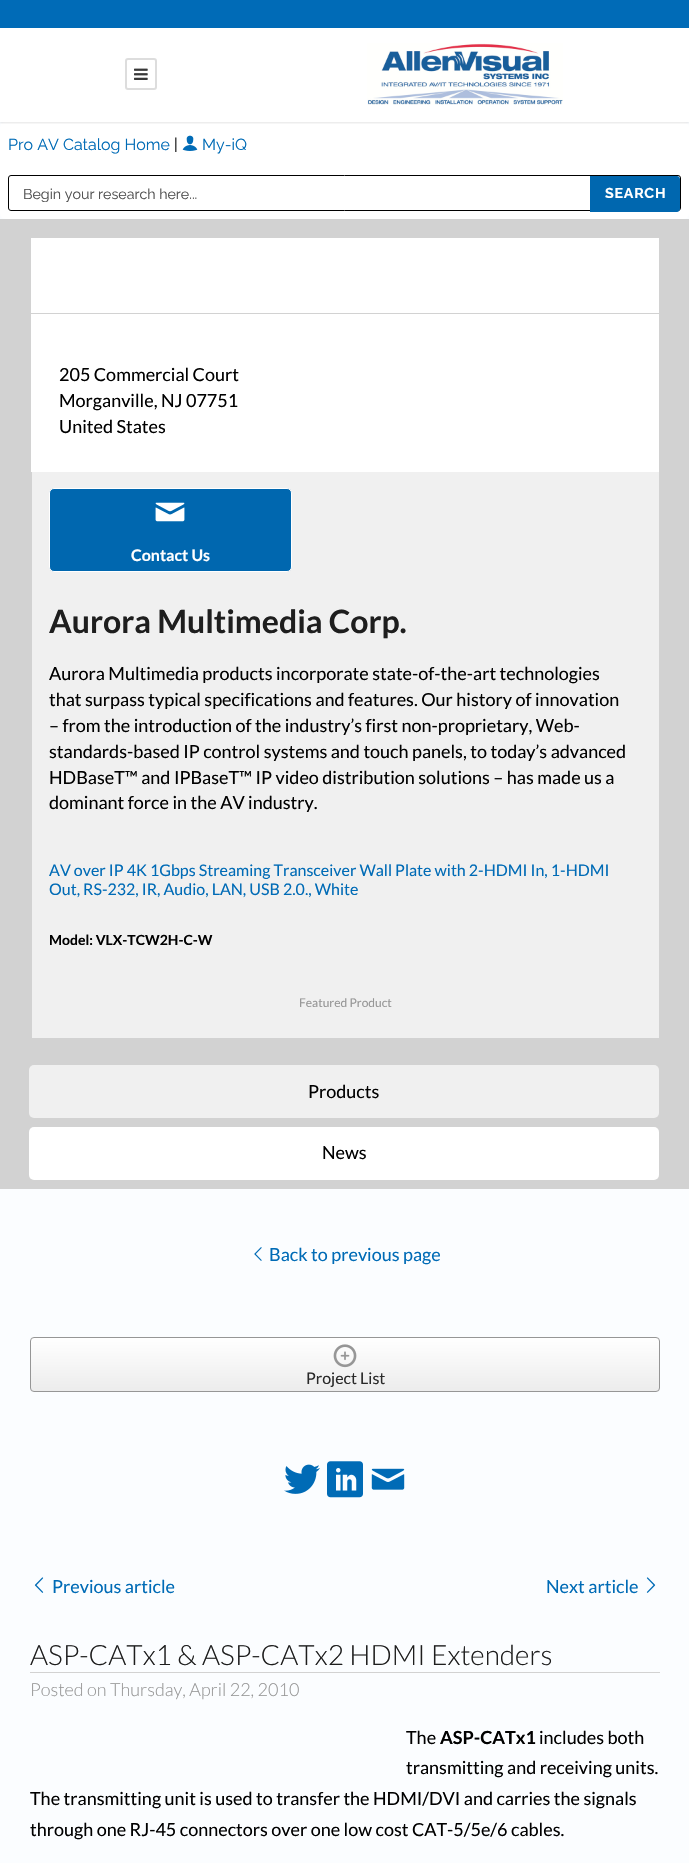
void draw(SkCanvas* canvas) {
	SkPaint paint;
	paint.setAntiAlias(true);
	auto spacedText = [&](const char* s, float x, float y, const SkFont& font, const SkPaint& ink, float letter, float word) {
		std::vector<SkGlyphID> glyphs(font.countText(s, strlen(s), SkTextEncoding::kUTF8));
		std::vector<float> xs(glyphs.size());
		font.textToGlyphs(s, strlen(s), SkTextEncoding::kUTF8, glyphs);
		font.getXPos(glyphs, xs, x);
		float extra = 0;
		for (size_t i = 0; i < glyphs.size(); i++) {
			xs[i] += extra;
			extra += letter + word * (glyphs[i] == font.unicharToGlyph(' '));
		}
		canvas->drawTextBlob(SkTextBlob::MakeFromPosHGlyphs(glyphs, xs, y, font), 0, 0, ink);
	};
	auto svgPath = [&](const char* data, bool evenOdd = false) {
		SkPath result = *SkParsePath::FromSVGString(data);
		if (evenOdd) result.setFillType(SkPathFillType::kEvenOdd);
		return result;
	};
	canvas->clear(0xffffffff);
	paint.setColor(0xff006bb7);
	canvas->drawRect(SkRect::MakeXYWH(0, 0, 689, 28), paint);
	paint.setColor(0xfffbfdff);
	canvas->drawRect(SkRect::MakeXYWH(0, 122, 689, 1741), paint);
	paint.setColor(0xffffffff);
	canvas->drawRoundRect(SkRect::MakeXYWH(0, 122, 689, 97), 5, 5, paint);
	canvas->save();
	canvas->clipRect(SkRect::MakeXYWH(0, 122, 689, 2));
	paint.setColor(0x1a000000);
	paint.setMaskFilter(SkMaskFilter::MakeBlur(kNormal_SkBlurStyle, 1));
	canvas->drawRect(SkRect::MakeXYWH(0, 29, 689, 94), paint);
	paint.setMaskFilter(nullptr);
	canvas->restore();
	paint.setStroke(true);
	paint.setStrokeWidth(2);
	paint.setColor(0xffdddddd);
	canvas->drawRoundRect(SkRect::MakeXYWH(126, 59, 30, 30), 2, 2, paint);
	canvas->drawImageRect(SkImages::DeferredFromEncodedData(SkData::MakeFromFileName("img1.png")), SkRect::MakeXYWH(134, 68, 14, 12), SkSamplingOptions());
	canvas->drawImageRect(SkImages::DeferredFromEncodedData(SkData::MakeFromFileName("img2.png")), SkRect::MakeXYWH(367, 43, 196, 62), SkSamplingOptions());
	SkFont f1(fontMgr->matchFamilyStyle("Raleway", SkFontStyle::Normal()), 16);
	f1.setSubpixel(true);
	paint.setStroke(false);
	paint.setColor(0xff006bb6);
	canvas->drawString("Pro AV Catalog Home", 8, 150, f1, paint);
	paint.setColor(0xff000000);
	canvas->drawString("|", 174, 150, f1, paint);
	canvas->drawImageRect(SkImages::DeferredFromEncodedData(SkData::MakeFromFileName("img3.png")), SkRect::MakeXYWH(182, 135, 16, 16), SkSamplingOptions());
	paint.setColor(0xff006bb6);
	canvas->drawString("My-iQ", 202, 150, f1, paint);
	paint.setStroke(true);
	paint.setStrokeWidth(1);
	paint.setColor(0xff000000);
	canvas->drawRoundRect(SkRect::MakeXYWH(8.5, 175.5, 672, 35), 2.5, 2.5, paint);
	canvas->save();
	canvas->clipRect(SkRect::MakeXYWH(23, 186, 436, 16));
	SkFont f2(fontMgr->matchFamilyStyle("Raleway", SkFontStyle::Normal()), 14.25);
	f2.setSubpixel(true);
	paint.setStroke(false);
	paint.setColor(0xff4e4e4e);
	canvas->drawString("Begin your research here...", 23, 199, f2, paint);
	canvas->restore();
	paint.setColor(0xff0067af);
	canvas->drawPath(svgPath("M590 176H677C678.5 176 680 177.5 680 179V209C680 210.5 678.5 212 677 212H590Z"), paint);
	SkFont f3(fontMgr->matchFamilyStyle("Raleway", SkFontStyle::Bold()), 14.25);
	f3.setSubpixel(true);
	paint.setColor(0xffffffff);
	spacedText("SEARCH", 605, 198, f3, paint, 0.75, 0);
	paint.setColor(0xffd2d2d2);
	canvas->drawRect(SkRect::MakeXYWH(0, 219, 689, 970), paint);
	paint.setColor(0xffffffff);
	canvas->drawRect(SkRect::MakeXYWH(31, 238, 628, 234), paint);
	paint.setColor(0xffd2d2d2);
	canvas->drawRect(SkRect::MakeXYWH(31, 313, 628, 1), paint);
	SkFont f4(fontMgr->matchFamilyStyle("Lato", SkFontStyle::Normal()), 18);
	f4.setSubpixel(true);
	paint.setColor(0xff000000);
	canvas->drawString("205 Commercial Court", 59, 381, f4, paint);
	canvas->drawString("Morganville, NJ 07751", 59, 407, f4, paint);
	canvas->drawString("United States", 59, 433, f4, paint);
	paint.setColor(0xfff0f0f0);
	canvas->drawRect(SkRect::MakeXYWH(32, 472, 627, 566), paint);
	paint.setColor(0xff0067af);
	canvas->drawRoundRect(SkRect::MakeXYWH(49.5, 488.5, 242, 83), 4.5, 4.5, paint);
	paint.setStroke(true);
	paint.setColor(0xffffffff);
	canvas->drawRoundRect(SkRect::MakeXYWH(49.5, 488.5, 242, 83), 4.5, 4.5, paint);
	canvas->drawImageRect(SkImages::DeferredFromEncodedData(SkData::MakeFromFileName("img4.png")), SkRect::MakeXYWH(155, 502, 30, 20), SkSamplingOptions());
	SkFont f5(fontMgr->matchFamilyStyle("Lato", SkFontStyle::Bold()), 16);
	f5.setSubpixel(true);
	paint.setStroke(false);
	canvas->drawString("Contact Us", 131, 561, f5, paint);
	SkFont f6(fontMgr->matchFamilyStyle("Lato", SkFontStyle::Bold()), 32);
	f6.setSubpixel(true);
	paint.setColor(0xff1e1e1e);
	canvas->drawString("Aurora Multimedia Corp.", 49, 633, f6, paint);
	paint.setColor(0xff000000);
	canvas->drawString("Aurora Multimedia products incorporate state-of-the-art technologies", 49, 680, f4, paint);
	canvas->drawString("that surpass typical specifications and features. Our history of innovation", 49, 706, f4, paint);
	canvas->drawString("– from the introduction of the industry’s first non-proprietary, Web-", 49, 732, f4, paint);
	canvas->drawString("standards-based IP control systems and touch panels, to today’s advanced", 49, 758, f4, paint);
	canvas->drawString("HDBaseT™ and IPBaseT™ IP video distribution solutions – has made us a", 49, 784, f4, paint);
	canvas->drawString("dominant force in the AV industry.", 49, 809, f4, paint);
	SkFont f7(fontMgr->matchFamilyStyle("Lato", SkFontStyle::Normal()), 16);
	f7.setSubpixel(true);
	paint.setColor(0xff006bb6);
	canvas->drawString("AV over IP 4K 1Gbps Streaming Transceiver Wall Plate with 2-HDMI In, 1-HDMI", 49, 876, f7, paint);
	canvas->drawString("Out, RS-232, IR, Audio, LAN, USB 2.0., White", 49, 895, f7, paint);
	SkFont f8(fontMgr->matchFamilyStyle("Lato", SkFontStyle::Bold()), 14);
	f8.setSubpixel(true);
	paint.setColor(0xff000000);
	canvas->drawString("Model: VLX-TCW2H-C-W", 49, 945, f8, paint);
	SkFont f9(fontMgr->matchFamilyStyle("Lato", SkFontStyle::Normal()), 12);
	f9.setSubpixel(true);
	paint.setColor(0xff969696);
	canvas->drawString("Featured Product", 299, 1007, f9, paint);
	paint.setColor(0xfff0f0f0);
	canvas->drawRoundRect(SkRect::MakeXYWH(29, 1065, 630, 53), 5, 5, paint);
	paint.setColor(0xff000000);
	canvas->drawString("Products", 308, 1098, f4, paint);
	paint.setColor(0xffffffff);
	canvas->drawRoundRect(SkRect::MakeXYWH(29, 1127, 630, 53), 5, 5, paint);
	paint.setColor(0xff000000);
	canvas->drawString("News", 322, 1159, f4, paint);
	canvas->drawImageRect(SkImages::DeferredFromEncodedData(SkData::MakeFromFileName("img5.png")), SkRect::MakeXYWH(254, 1247, 8, 14), SkSamplingOptions());
	paint.setColor(0xff006bb6);
	canvas->drawString("Back to previous page", 269, 1261, f4, paint);
	canvas->save();
	canvas->clipPath(svgPath("M34 1337H656C658 1337 660 1339 660 1341V1388C660 1390 658 1392 656 1392H34C32 1392 30 1390 30 1388V1341C30 1339 32 1337 34 1337Z"), true);
	{
		const SkColor colors[] = {0xffffffff, 0xffececec};
		const float stops[] = {0, 1};
		const SkPoint ends[] = {{345, 1338}, {345, 1391}};
		paint.setShader(SkGradientShader::MakeLinear(ends, colors, stops, 2, SkTileMode::kClamp));
		paint.setAlpha(255);
	}
	canvas->drawRect(SkRect::MakeXYWH(30, 1338, 630, 53), paint);
	canvas->restore();
	paint.setStroke(true);
	paint.setShader(nullptr);
	paint.setColor(0xff969696);
	canvas->drawRoundRect(SkRect::MakeXYWH(30.5, 1337.5, 629, 54), 3.5, 3.5, paint);
	canvas->drawImageRect(SkImages::DeferredFromEncodedData(SkData::MakeFromFileName("img6.png")), SkRect::MakeXYWH(333, 1344, 24, 24), SkSamplingOptions());
	paint.setStroke(false);
	paint.setColor(0xff2a2a2a);
	canvas->drawString("Project List", 306, 1384, f7, paint);
	canvas->drawImageRect(SkImages::DeferredFromEncodedData(SkData::MakeFromFileName("img7.png")), SkRect::MakeXYWH(284, 1464, 36, 30), SkSamplingOptions());
	canvas->drawImageRect(SkImages::DeferredFromEncodedData(SkData::MakeFromFileName("img8.png")), SkRect::MakeXYWH(327, 1461, 36, 37), SkSamplingOptions());
	canvas->drawImageRect(SkImages::DeferredFromEncodedData(SkData::MakeFromFileName("img9.png")), SkRect::MakeXYWH(371, 1468, 34, 22), SkSamplingOptions());
	canvas->drawImageRect(SkImages::DeferredFromEncodedData(SkData::MakeFromFileName("img10.png")), SkRect::MakeXYWH(34, 1577, 10, 16), SkSamplingOptions());
	paint.setColor(0xff006bb6);
	canvas->drawString("Previous article", 52, 1593, f4, paint);
	canvas->drawString("Next article", 546, 1593, f4, paint);
	canvas->drawImageRect(SkImages::DeferredFromEncodedData(SkData::MakeFromFileName("img11.png")), SkRect::MakeXYWH(646, 1577, 10, 16), SkSamplingOptions());
	SkFont f10(fontMgr->matchFamilyStyle("Lato", SkFontStyle(300, SkFontStyle::kNormal_Width, SkFontStyle::kUpright_Slant)), 28);
	f10.setSubpixel(true);
	paint.setColor(0xff1e1e1e);
	canvas->drawString("ASP-CATx1 & ASP-CATx2 HDMI Extenders", 30, 1665, f10, paint);
	paint.setColor(0xffd2d2d2);
	canvas->drawRect(SkRect::MakeXYWH(30, 1672, 630, 1), paint);
	SkFont f11(fontMgr->matchFamilyStyle("Lato", SkFontStyle(300, SkFontStyle::kNormal_Width, SkFontStyle::kUpright_Slant)), 18);
	f11.setSubpixel(true);
	paint.setColor(0xff969696);
	canvas->drawString("Posted on Thursday, April 22, 2010", 30, 1696, f11, paint);
	paint.setColor(0xff000000);
	canvas->drawString("The", 406, 1744, f4, paint);
	SkFont f12(fontMgr->matchFamilyStyle("Lato", SkFontStyle::Bold()), 18);
	f12.setSubpixel(true);
	canvas->drawString("ASP-CATx1", 440, 1744, f12, paint);
	canvas->drawString("includes both", 539, 1744, f4, paint);
	canvas->drawString("transmitting and receiving units.", 406, 1774, f4, paint);
	canvas->drawString("The transmitting unit is used to transfer the HDMI/DVI and carries the signals", 30, 1805, f4, paint);
	canvas->drawString("through one RJ-45 connectors over one low cost CAT-5/5e/6 cables.", 30, 1836, f4, paint);
}
